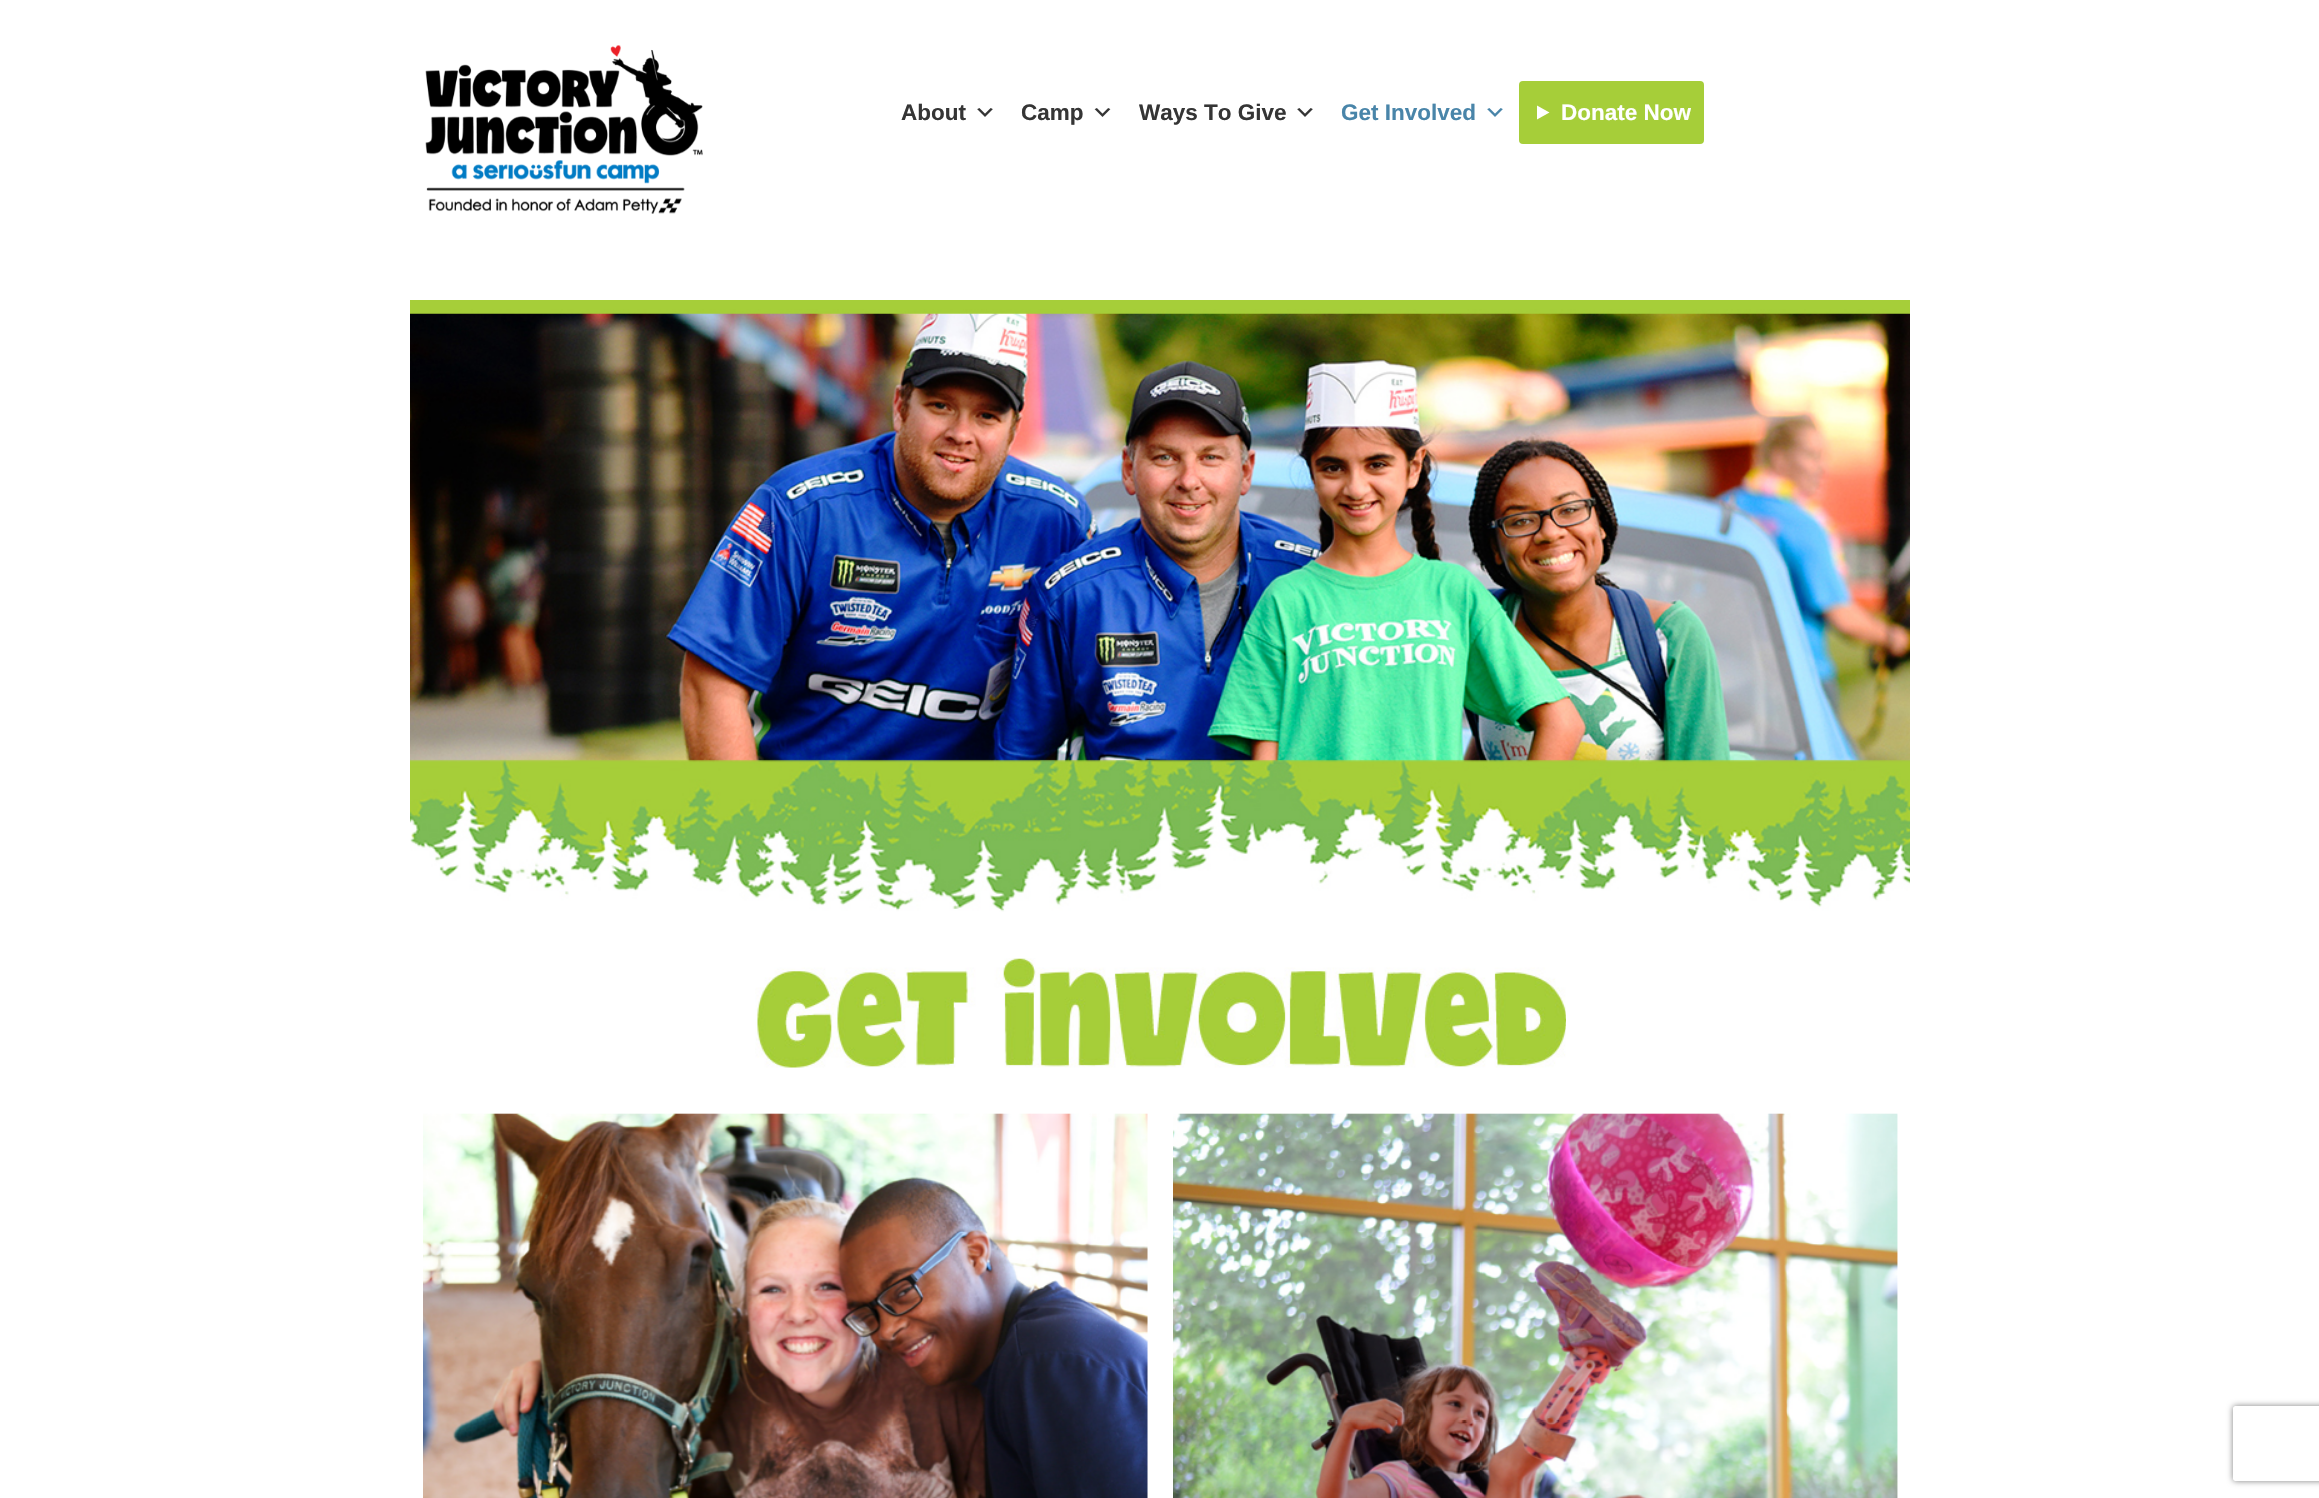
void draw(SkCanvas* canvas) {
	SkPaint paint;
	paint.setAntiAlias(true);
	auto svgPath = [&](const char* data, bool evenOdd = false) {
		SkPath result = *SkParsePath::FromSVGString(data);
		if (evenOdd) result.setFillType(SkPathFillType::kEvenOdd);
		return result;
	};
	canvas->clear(0xffffffff);
	canvas->drawImageRect(SkImages::DeferredFromEncodedData(SkData::MakeFromFileName("img1.png")), SkRect::MakeXYWH(425, 45, 278, 169), SkSamplingOptions());
	SkFont f1(fontMgr->matchFamilyStyle("Liberation Sans", SkFontStyle::Bold()), 22.5);
	f1.setSubpixel(true);
	paint.setColor(0xff353535);
	canvas->drawString("About", 901, 120, f1, paint);
	canvas->drawImageRect(SkImages::DeferredFromEncodedData(SkData::MakeFromFileName("img2.png")), SkRect::MakeXYWH(977, 108, 16, 9), SkSamplingOptions());
	canvas->drawString("Camp", 1021, 120, f1, paint);
	canvas->drawImageRect(SkImages::DeferredFromEncodedData(SkData::MakeFromFileName("img3.png")), SkRect::MakeXYWH(1094, 108, 17, 9), SkSamplingOptions());
	canvas->drawString("Ways To Give", 1139, 120, f1, paint);
	canvas->drawImageRect(SkImages::DeferredFromEncodedData(SkData::MakeFromFileName("img2.png")), SkRect::MakeXYWH(1297, 108, 16, 9), SkSamplingOptions());
	paint.setColor(0xff4985a9);
	canvas->drawString("Get Involved", 1341, 120, f1, paint);
	canvas->drawImageRect(SkImages::DeferredFromEncodedData(SkData::MakeFromFileName("img4.png")), SkRect::MakeXYWH(1487, 108, 16, 9), SkSamplingOptions());
	paint.setColor(0xffa6ce39);
	canvas->drawRoundRect(SkRect::MakeXYWH(1519, 81, 185, 63), 4, 4, paint);
	paint.setColor(0xffffffff);
	canvas->drawPath(svgPath("M1537 105.5L1549.5 112.5L1537 119.5Z"), paint);
	canvas->drawString("Donate Now", 1561, 120, f1, paint);
	canvas->drawImageRect(SkImages::DeferredFromEncodedData(SkData::MakeFromFileName("img5.png")), SkRect::MakeXYWH(410, 300, 1500, 612), SkSamplingOptions());
	canvas->drawImageRect(SkImages::DeferredFromEncodedData(SkData::MakeFromFileName("img6.png")), SkRect::MakeXYWH(755, 958, 811, 110), SkSamplingOptions());
	canvas->drawImageRect(SkImages::DeferredFromEncodedData(SkData::MakeFromFileName("img7.png")), SkRect::MakeXYWH(423, 1113, 725, 385), SkSamplingOptions());
	canvas->drawImageRect(SkImages::DeferredFromEncodedData(SkData::MakeFromFileName("img8.png")), SkRect::MakeXYWH(1173, 1113, 725, 385), SkSamplingOptions());
	canvas->save();
	canvas->clipPath(svgPath("M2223 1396H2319V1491H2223ZM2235.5 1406H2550.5C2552 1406 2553 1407 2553 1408.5V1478.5C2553 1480 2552 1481 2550.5 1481H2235.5C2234 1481 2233 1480 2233 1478.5V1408.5C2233 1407 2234 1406 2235.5 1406Z", true), true);
	paint.setColor(0xff808080);
	paint.setMaskFilter(SkMaskFilter::MakeBlur(kNormal_SkBlurStyle, 3));
	canvas->drawRoundRect(SkRect::MakeXYWH(2233, 1406, 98, 75), 2.5, 2.5, paint);
	paint.setMaskFilter(nullptr);
	canvas->restore();
}
